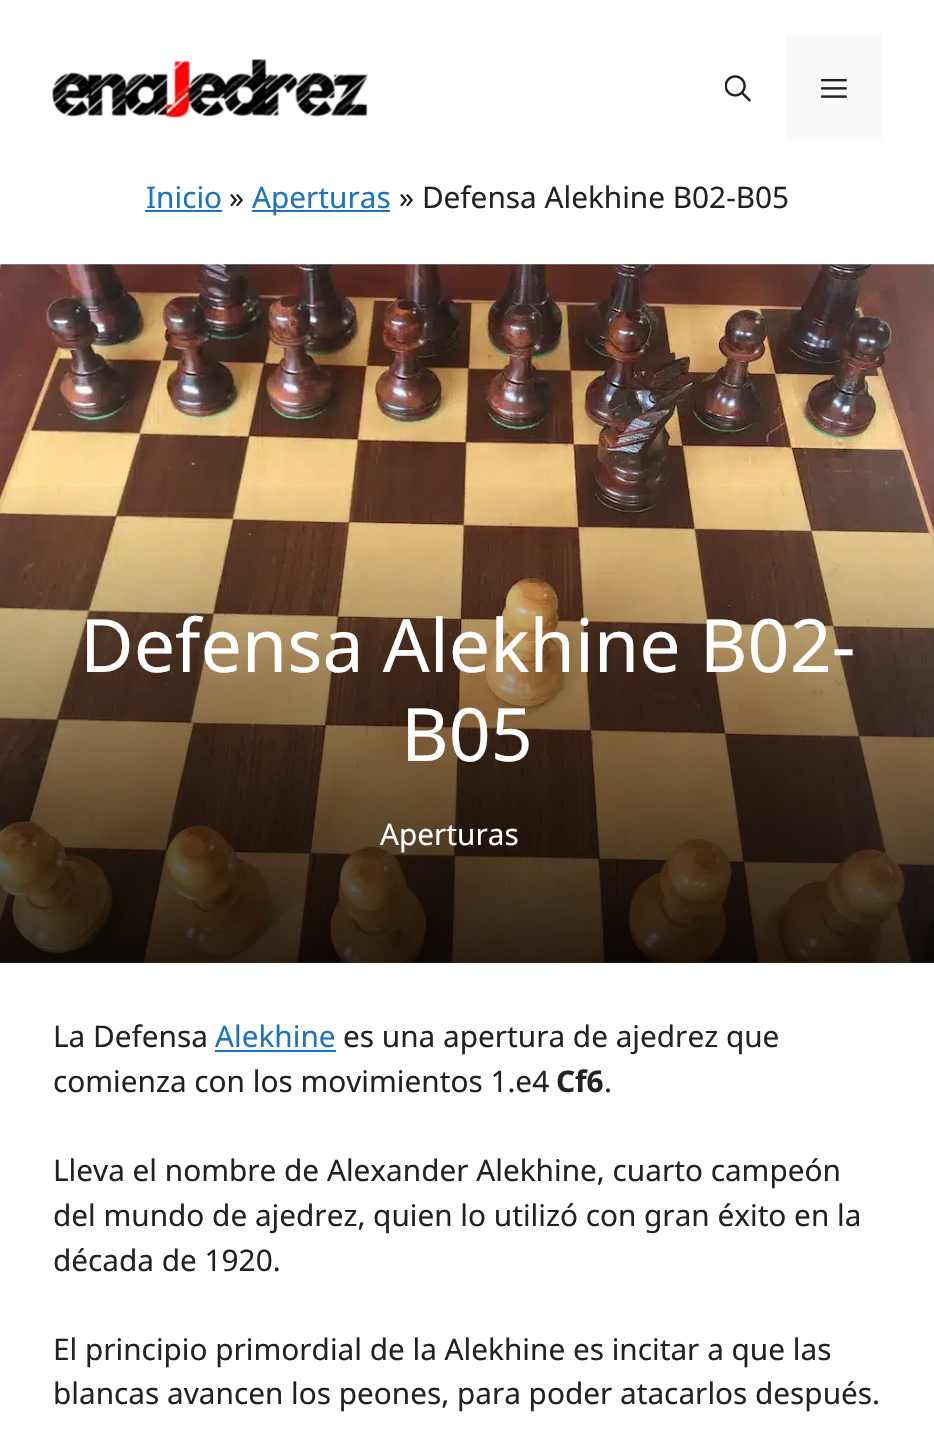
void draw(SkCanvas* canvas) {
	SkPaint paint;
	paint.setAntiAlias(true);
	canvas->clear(0xffffffff);
	canvas->drawImageRect(SkImages::DeferredFromEncodedData(SkData::MakeFromFileName("img1.png")), SkRect::MakeXYWH(52, 59, 316, 59), SkSamplingOptions());
	canvas->drawImageRect(SkImages::DeferredFromEncodedData(SkData::MakeFromFileName("img2.png")), SkRect::MakeXYWH(725, 75, 26, 27), SkSamplingOptions());
	paint.setColor(0xfffafafa);
	canvas->drawRect(SkRect::MakeXYWH(786, 35, 96, 105), paint);
	canvas->drawImageRect(SkImages::DeferredFromEncodedData(SkData::MakeFromFileName("img3.png")), SkRect::MakeXYWH(821, 78, 26, 20), SkSamplingOptions());
	SkFont f1(fontMgr->matchFamilyStyle("Noto Sans", SkFontStyle::Normal()), 29.75);
	f1.setSubpixel(true);
	paint.setColor(0xff1e73be);
	canvas->drawString("Inicio", 146, 208, f1, paint);
	canvas->drawRect(SkRect::MakeXYWH(145, 210, 77, 2), paint);
	paint.setColor(0xff222222);
	canvas->drawString("»", 229, 208, f1, paint);
	paint.setColor(0xff1e73be);
	canvas->drawRect(SkRect::MakeXYWH(252, 210, 138, 2), paint);
	canvas->drawString("Aperturas", 252, 208, f1, paint);
	paint.setColor(0xff222222);
	canvas->drawString("» Defensa Alekhine B02-B05", 399, 208, f1, paint);
	canvas->drawImageRect(SkImages::DeferredFromEncodedData(SkData::MakeFromFileName("img4.png")), SkRect::MakeXYWH(0, 264, 934, 699), SkSamplingOptions());
	{
		const SkColor colors[] = {0xcc000000, 0x00000000};
		const float stops[] = {0, 0.7};
		const SkPoint ends[] = {{467, 963}, {467, 264}};
		paint.setShader(SkGradientShader::MakeLinear(ends, colors, stops, 2, SkTileMode::kClamp));
		paint.setAlpha(255);
	}
	canvas->drawRect(SkRect::MakeXYWH(0, 487, 934, 476), paint);
	SkFont f2(fontMgr->matchFamilyStyle("Noto Sans", SkFontStyle::Normal()), 73.5);
	f2.setSubpixel(true);
	paint.setShader(nullptr);
	paint.setColor(0xffffffff);
	canvas->drawString("Defensa Alekhine B02-", 80, 672, f2, paint);
	canvas->drawString("B05", 401, 761, f2, paint);
	canvas->drawString("Aperturas", 380, 845, f1, paint);
	paint.setColor(0xff222222);
	canvas->drawString("La Defensa", 53, 1047, f1, paint);
	paint.setColor(0xff1e73be);
	canvas->drawString("Alekhine", 215, 1047, f1, paint);
	canvas->drawRect(SkRect::MakeXYWH(215, 1050, 121, 2), paint);
	paint.setColor(0xff222222);
	canvas->drawString("es una apertura de ajedrez que", 343, 1047, f1, paint);
	canvas->drawString("comienza con los movimientos 1.e4", 53, 1092, f1, paint);
	SkFont f3(fontMgr->matchFamilyStyle("Noto Sans", SkFontStyle::Bold()), 29.75);
	f3.setSubpixel(true);
	canvas->drawString("Cf6", 556, 1092, f3, paint);
	canvas->drawString(".", 604, 1092, f1, paint);
	canvas->drawString("Lleva el nombre de Alexander Alekhine, cuarto campeón", 53, 1181, f1, paint);
	canvas->drawString("del mundo de ajedrez, quien lo utilizó con gran éxito en la", 53, 1226, f1, paint);
	canvas->drawString("década de 1920.", 53, 1271, f1, paint);
	canvas->drawString("El principio primordial de la Alekhine es incitar a que las", 53, 1360, f1, paint);
	canvas->drawString("blancas avancen los peones, para poder atacarlos después.", 53, 1404, f1, paint);
}
